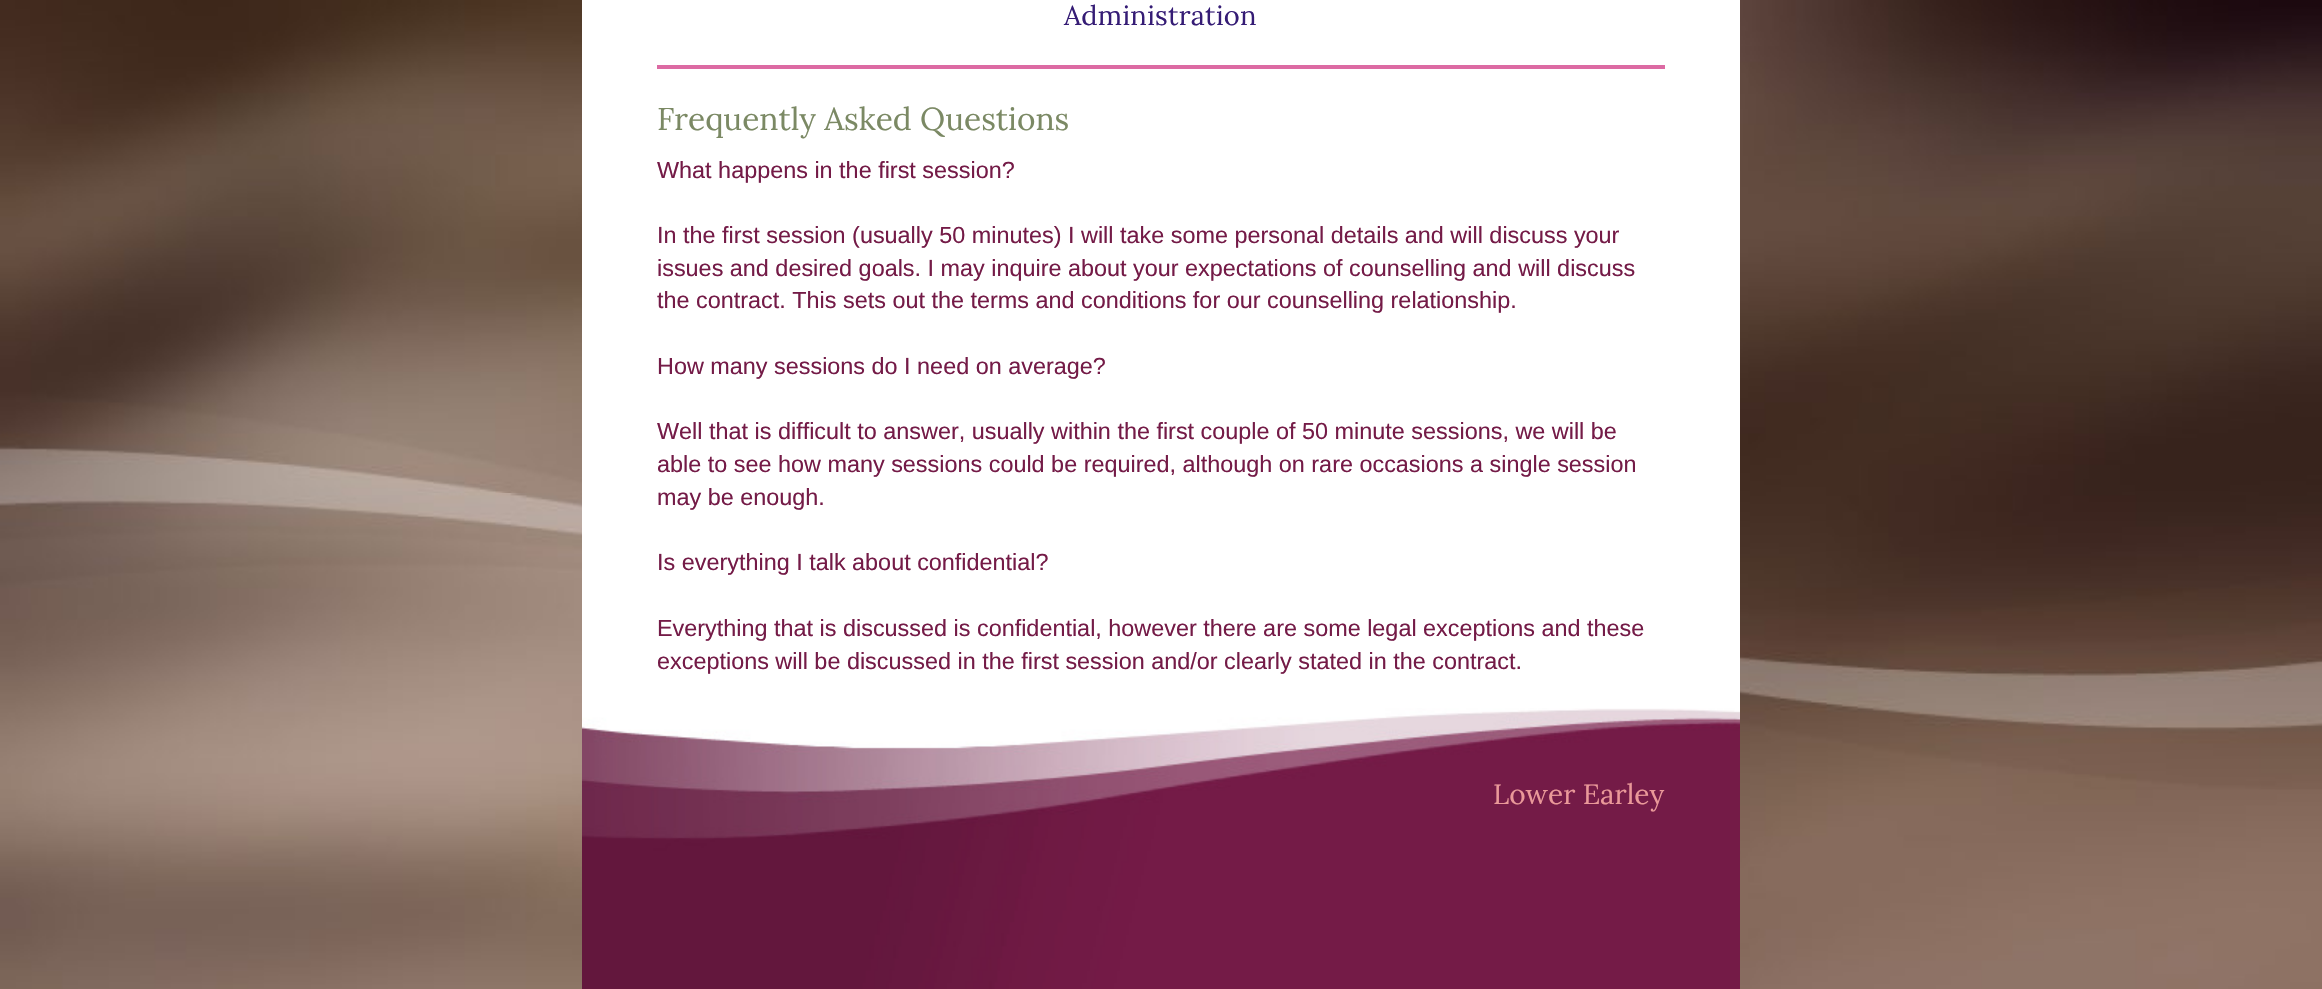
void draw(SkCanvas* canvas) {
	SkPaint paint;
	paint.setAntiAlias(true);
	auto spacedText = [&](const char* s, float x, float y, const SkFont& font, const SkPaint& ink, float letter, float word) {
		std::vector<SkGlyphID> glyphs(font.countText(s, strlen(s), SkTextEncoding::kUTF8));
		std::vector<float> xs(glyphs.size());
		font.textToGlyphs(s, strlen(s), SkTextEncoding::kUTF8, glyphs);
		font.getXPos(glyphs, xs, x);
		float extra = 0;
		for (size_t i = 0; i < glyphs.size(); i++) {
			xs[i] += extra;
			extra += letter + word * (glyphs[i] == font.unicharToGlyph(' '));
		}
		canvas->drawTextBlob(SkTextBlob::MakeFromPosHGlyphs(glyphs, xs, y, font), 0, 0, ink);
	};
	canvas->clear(0xffffffff);
	canvas->drawImageRect(SkImages::DeferredFromEncodedData(SkData::MakeFromFileName("img1.png")), SkRect::MakeXYWH(0, 0, 2322, 989), SkSamplingOptions());
	paint.setColor(0xffffffff);
	canvas->drawRect(SkRect::MakeXYWH(582, 0, 1158, 708), paint);
	paint.setColor(0xffdc6aa3);
	canvas->drawRect(SkRect::MakeXYWH(657, 65, 1008, 4), paint);
	SkFont f1(fontMgr->matchFamilyStyle("Lora", SkFontStyle::Normal()), 27.25);
	f1.setSubpixel(true);
	paint.setColor(0xff351c75);
	spacedText("Administration", 1064, 25, f1, paint, 0.25, 0);
	SkFont f2(fontMgr->matchFamilyStyle("Lora", SkFontStyle::Normal()), 31.6);
	f2.setSubpixel(true);
	paint.setColor(0xff7b8964);
	canvas->drawString("Frequently Asked Questions", 657, 130, f2, paint);
	SkFont f3(fontMgr->matchFamilyStyle("Liberation Sans", SkFontStyle::Normal()), 23.4);
	f3.setSubpixel(true);
	paint.setColor(0xff741b47);
	canvas->drawString("What happens in the first session?", 657, 178, f3, paint);
	canvas->drawString("In the first session (usually 50 minutes) I will take some personal details and will discuss your", 657, 243, f3, paint);
	canvas->drawString("issues and desired goals. I may inquire about your expectations of counselling and will discuss", 657, 276, f3, paint);
	canvas->drawString("the contract. This sets out the terms and conditions for our counselling relationship.", 657, 308, f3, paint);
	canvas->drawString("How many sessions do I need on average?", 657, 374, f3, paint);
	canvas->drawString("Well that is difficult to answer, usually within the first couple of 50 minute sessions, we will be", 657, 439, f3, paint);
	canvas->drawString("able to see how many sessions could be required, although on rare occasions a single session", 657, 472, f3, paint);
	canvas->drawString("may be enough.", 657, 505, f3, paint);
	canvas->drawString("Is everything I talk about confidential?", 657, 570, f3, paint);
	canvas->drawString("Everything that is discussed is confidential, however there are some legal exceptions and these", 657, 636, f3, paint);
	canvas->drawString("exceptions will be discussed in the first session and/or clearly stated in the contract.", 657, 669, f3, paint);
	canvas->drawImageRect(SkImages::DeferredFromEncodedData(SkData::MakeFromFileName("img2.png")), SkRect::MakeXYWH(582, 708, 1158, 281), SkSamplingOptions());
	SkFont f4(fontMgr->matchFamilyStyle("Lora", SkFontStyle::Normal()), 28);
	f4.setSubpixel(true);
	paint.setColor(0xffea9999);
	canvas->drawString("Lower Earley", 1493, 804, f4, paint);
}
